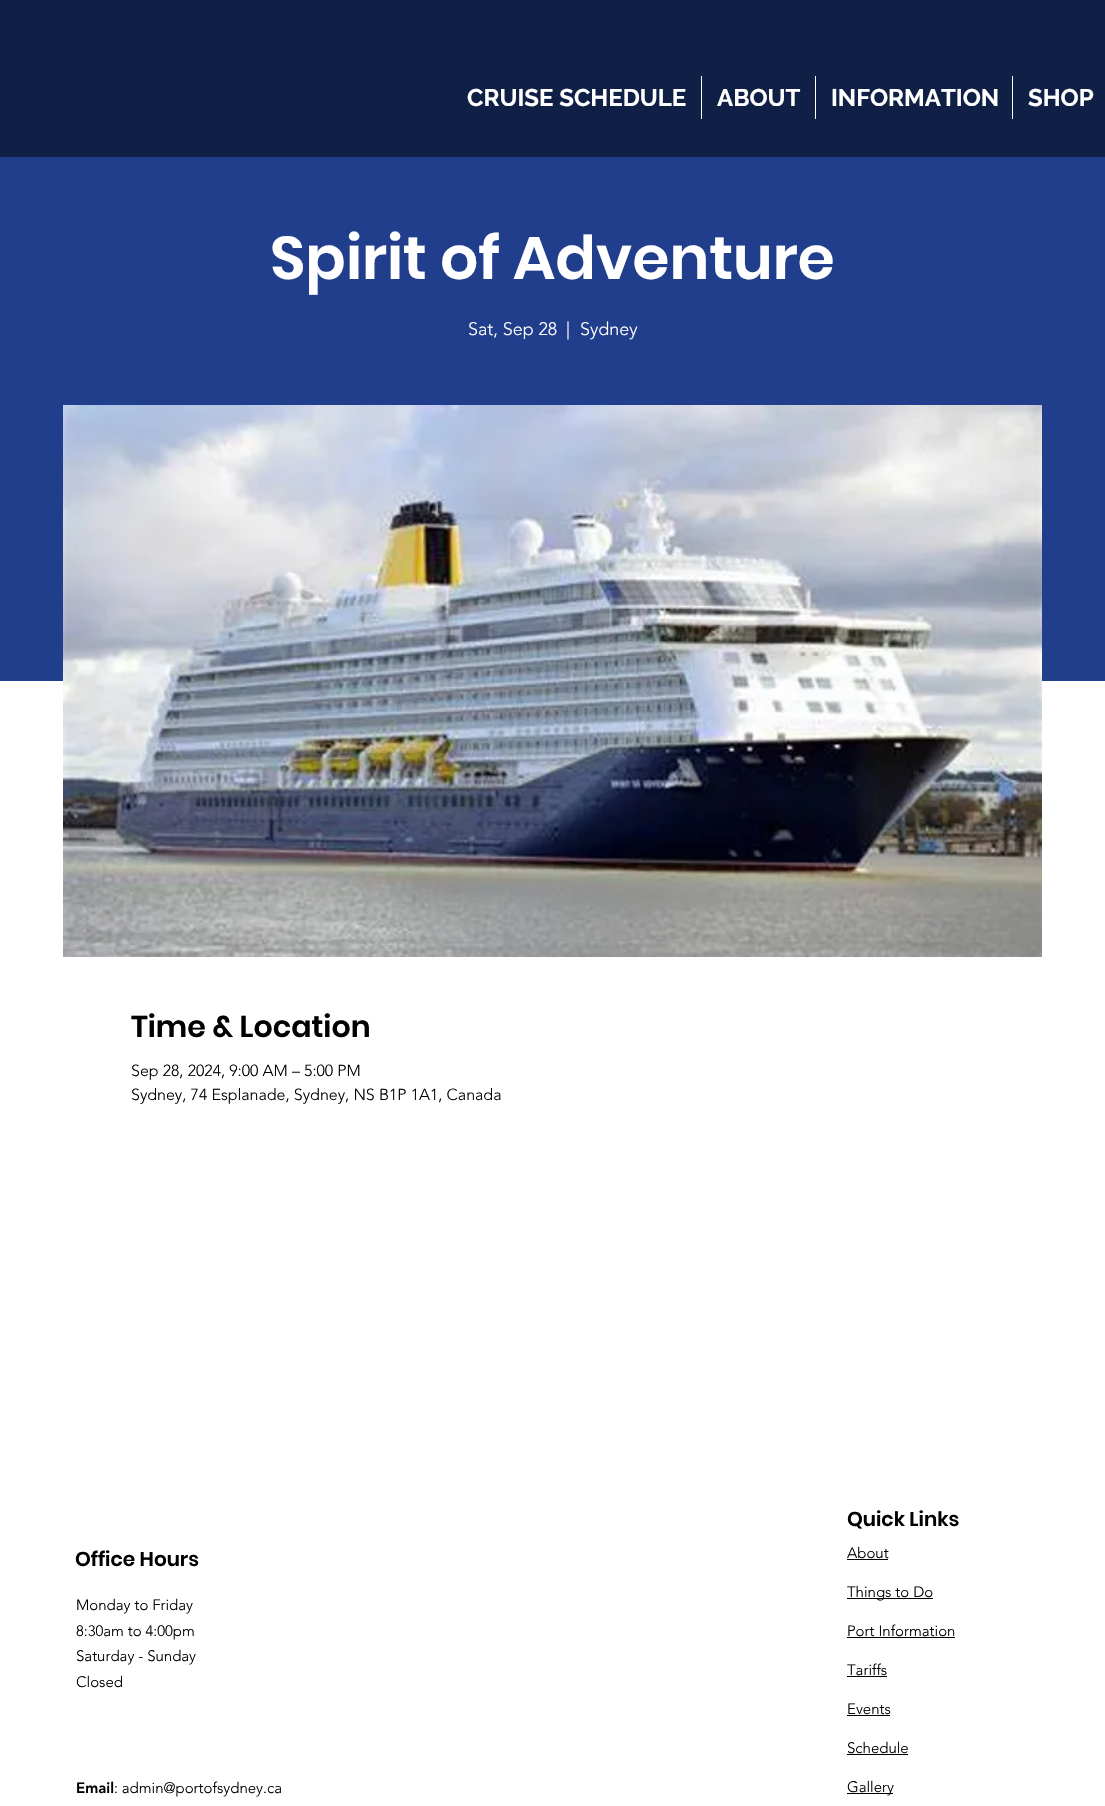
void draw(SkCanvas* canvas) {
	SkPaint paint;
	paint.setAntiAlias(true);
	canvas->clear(0xffffffff);
	paint.setColor(0xff101f46);
	canvas->drawRect(SkRect::MakeXYWH(0, 0, 1105, 157), paint);
	SkFont f1(fontMgr->matchFamilyStyle("Raleway", SkFontStyle::Bold()), 24);
	f1.setSubpixel(true);
	paint.setColor(0xffffffff);
	canvas->drawString("CRUISE SCHEDULE", 467, 106, f1, paint);
	canvas->drawRect(SkRect::MakeXYWH(701, 76, 1, 43), paint);
	canvas->drawString("ABOUT", 717, 106, f1, paint);
	canvas->drawRect(SkRect::MakeXYWH(815, 76, 1, 43), paint);
	canvas->drawString("INFORMATION", 831, 106, f1, paint);
	canvas->drawRect(SkRect::MakeXYWH(1012, 76, 1, 43), paint);
	canvas->drawString("SHOP", 1028, 106, f1, paint);
	paint.setColor(0xff213e8c);
	canvas->drawRect(SkRect::MakeXYWH(0, 157, 1105, 524), paint);
	SkFont f2(fontMgr->matchFamilyStyle("Poppins", SkFontStyle(600, SkFontStyle::kNormal_Width, SkFontStyle::kUpright_Slant)), 60);
	f2.setSubpixel(true);
	paint.setColor(0xffffffff);
	canvas->drawString("Spirit of Adventure", 270, 279, f2, paint);
	SkFont f3(fontMgr->matchFamilyStyle("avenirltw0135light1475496", SkFontStyle(300, SkFontStyle::kNormal_Width, SkFontStyle::kUpright_Slant)), 18);
	f3.setSubpixel(true);
	canvas->drawString("Sat, Sep 28", 468, 335, f3, paint);
	canvas->drawString("|", 566, 335, f3, paint);
	canvas->drawString("Sydney", 580, 335, f3, paint);
	canvas->drawImageRect(SkImages::DeferredFromEncodedData(SkData::MakeFromFileName("img1.png")), SkRect::MakeXYWH(63, 405, 979, 552), SkSamplingOptions());
	SkFont f4(fontMgr->matchFamilyStyle("Poppins", SkFontStyle(600, SkFontStyle::kNormal_Width, SkFontStyle::kUpright_Slant)), 30);
	f4.setSubpixel(true);
	paint.setColor(0xff000000);
	canvas->drawString("Time & Location", 131, 1037, f4, paint);
	SkFont f5(fontMgr->matchFamilyStyle("avenirltw0135light1475496", SkFontStyle(300, SkFontStyle::kNormal_Width, SkFontStyle::kUpright_Slant)), 16);
	f5.setSubpixel(true);
	canvas->drawString("Sep 28, 2024, 9:00 AM – 5:00 PM", 131, 1076, f5, paint);
	canvas->drawString("Sydney, 74 Esplanade, Sydney, NS B1P 1A1, Canada", 131, 1100, f5, paint);
	SkFont f6(fontMgr->matchFamilyStyle("Poppins", SkFontStyle(600, SkFontStyle::kNormal_Width, SkFontStyle::kUpright_Slant)), 20);
	f6.setSubpixel(true);
	canvas->drawString("Office Hours", 75, 1566, f6, paint);
	SkFont f7(fontMgr->matchFamilyStyle("avenirltw0135light1475496", SkFontStyle(300, SkFontStyle::kNormal_Width, SkFontStyle::kUpright_Slant)), 15);
	f7.setSubpixel(true);
	canvas->drawString("Monday to Friday", 76, 1610, f7, paint);
	canvas->drawString("8:30am to 4:00pm", 76, 1636, f7, paint);
	canvas->drawString("Saturday - Sunday", 76, 1661, f7, paint);
	canvas->drawString("Closed", 76, 1687, f7, paint);
	SkFont f8(fontMgr->matchFamilyStyle("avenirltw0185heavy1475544", SkFontStyle(900, SkFontStyle::kNormal_Width, SkFontStyle::kUpright_Slant)), 15);
	f8.setSubpixel(true);
	canvas->drawString("Email", 76, 1793, f8, paint);
	canvas->drawString(": admin@portofsydney.ca", 114, 1793, f7, paint);
	canvas->drawString("Quick Links", 847, 1526, f6, paint);
	canvas->drawString("About", 847, 1558, f7, paint);
	canvas->drawRect(SkRect::MakeXYWH(847, 1559, 41, 1), paint);
	canvas->drawRect(SkRect::MakeXYWH(847, 1598, 86, 1), paint);
	canvas->drawString("Things to Do", 847, 1597, f7, paint);
	canvas->drawString("Port Information", 847, 1636, f7, paint);
	canvas->drawRect(SkRect::MakeXYWH(847, 1637, 108, 1), paint);
	canvas->drawString("Tariffs", 847, 1675, f7, paint);
	canvas->drawRect(SkRect::MakeXYWH(847, 1676, 40, 1), paint);
	canvas->drawString("Events", 847, 1714, f7, paint);
	canvas->drawRect(SkRect::MakeXYWH(847, 1715, 43, 1), paint);
	canvas->drawString("Schedule", 847, 1753, f7, paint);
	canvas->drawRect(SkRect::MakeXYWH(847, 1754, 61, 1), paint);
	canvas->drawRect(SkRect::MakeXYWH(847, 1793, 46, 1), paint);
	canvas->drawString("Gallery", 847, 1792, f7, paint);
}
